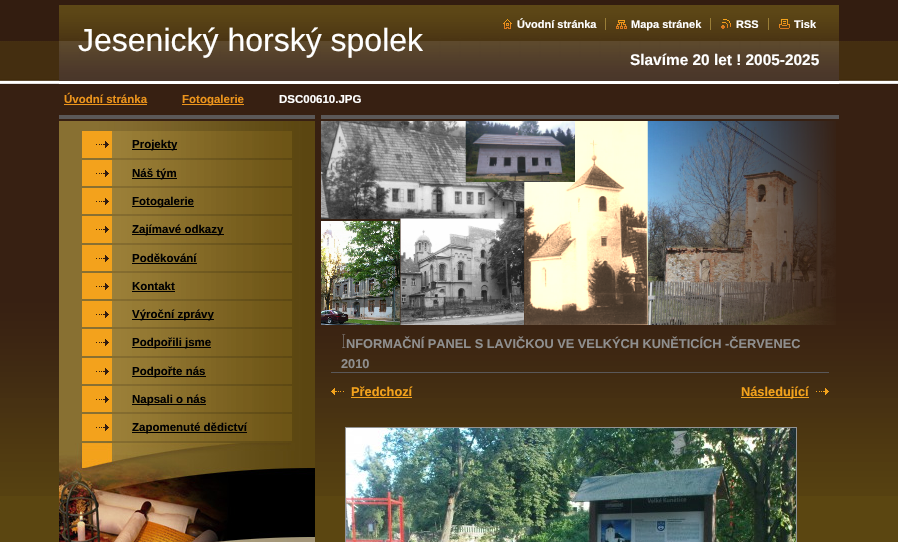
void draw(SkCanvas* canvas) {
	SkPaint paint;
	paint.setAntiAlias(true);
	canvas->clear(0xff5b4611);
	canvas->drawImageRect(SkImages::DeferredFromEncodedData(SkData::MakeFromFileName("img1.png")), SkRect::MakeXYWH(0, 0, 898, 496), SkSamplingOptions());
	canvas->drawImageRect(SkImages::DeferredFromEncodedData(SkData::MakeFromFileName("img2.png")), SkRect::MakeXYWH(59, 0, 780, 81), SkSamplingOptions());
	paint.setColor(0xffffffff);
	canvas->drawRect(SkRect::MakeXYWH(59, 83, 780, 1), paint);
	canvas->drawImageRect(SkImages::DeferredFromEncodedData(SkData::MakeFromFileName("img3.png")), SkRect::MakeXYWH(503, 19, 9, 10), SkSamplingOptions());
	SkFont f1(fontMgr->matchFamilyStyle("Liberation Sans", SkFontStyle::Bold()), 11);
	f1.setSubpixel(true);
	canvas->drawString("Úvodní stránka", 517, 28, f1, paint);
	canvas->drawImageRect(SkImages::DeferredFromEncodedData(SkData::MakeFromFileName("img4.png")), SkRect::MakeXYWH(616, 20, 11, 9), SkSamplingOptions());
	canvas->drawString("Mapa stránek", 631, 28, f1, paint);
	paint.setColor(0xff9a7e37);
	canvas->drawRect(SkRect::MakeXYWH(605, 18, 1, 12), paint);
	canvas->drawImageRect(SkImages::DeferredFromEncodedData(SkData::MakeFromFileName("img5.png")), SkRect::MakeXYWH(721, 19, 10, 10), SkSamplingOptions());
	paint.setColor(0xffffffff);
	canvas->drawString("RSS", 736, 28, f1, paint);
	paint.setColor(0xff9a7e37);
	canvas->drawRect(SkRect::MakeXYWH(710, 18, 1, 12), paint);
	canvas->drawImageRect(SkImages::DeferredFromEncodedData(SkData::MakeFromFileName("img6.png")), SkRect::MakeXYWH(779, 19, 11, 10), SkSamplingOptions());
	paint.setColor(0xffffffff);
	canvas->drawString("Tisk", 794, 28, f1, paint);
	paint.setColor(0xff9a7e37);
	canvas->drawRect(SkRect::MakeXYWH(768, 18, 1, 12), paint);
	SkFont f2(fontMgr->matchFamilyStyle("Liberation Sans", SkFontStyle::Normal()), 32);
	f2.setSubpixel(true);
	paint.setColor(0xffffffff);
	canvas->drawString("Jesenický horský spolek", 78, 51, f2, paint);
	SkFont f3(fontMgr->matchFamilyStyle("Liberation Sans", SkFontStyle::Bold()), 15.4);
	f3.setSubpixel(true);
	canvas->drawString("Slavíme 20 let ! 2005-2025", 630, 65, f3, paint);
	paint.setColor(0xff372012);
	canvas->drawRect(SkRect::MakeXYWH(59, 84, 780, 1), paint);
	SkFont f4(fontMgr->matchFamilyStyle("Liberation Sans", SkFontStyle::Bold()), 11.5);
	f4.setSubpixel(true);
	paint.setColor(0xffed951c);
	canvas->drawString("Úvodní stránka", 64, 103, f4, paint);
	canvas->drawRect(SkRect::MakeXYWH(64, 104, 83, 1), paint);
	canvas->drawRect(SkRect::MakeXYWH(182, 104, 62, 1), paint);
	canvas->drawString("Fotogalerie", 182, 103, f4, paint);
	paint.setColor(0xffffffff);
	canvas->drawString("DSC00610.JPG", 279, 103, f4, paint);
	canvas->drawImageRect(SkImages::DeferredFromEncodedData(SkData::MakeFromFileName("img7.png")), SkRect::MakeXYWH(59, 115, 256, 6), SkSamplingOptions());
	canvas->drawImageRect(SkImages::DeferredFromEncodedData(SkData::MakeFromFileName("img8.png")), SkRect::MakeXYWH(59, 121, 256, 322), SkSamplingOptions());
	canvas->drawImageRect(SkImages::DeferredFromEncodedData(SkData::MakeFromFileName("img9.png")), SkRect::MakeXYWH(82, 131, 210, 27), SkSamplingOptions());
	canvas->drawImageRect(SkImages::DeferredFromEncodedData(SkData::MakeFromFileName("img10.png")), SkRect::MakeXYWH(96, 141, 13, 7), SkSamplingOptions());
	paint.setColor(0xff000000);
	canvas->drawRect(SkRect::MakeXYWH(132, 149, 45, 1), paint);
	canvas->drawString("Projekty", 132, 148, f4, paint);
	canvas->drawImageRect(SkImages::DeferredFromEncodedData(SkData::MakeFromFileName("img11.png")), SkRect::MakeXYWH(82, 160, 210, 26), SkSamplingOptions());
	canvas->drawImageRect(SkImages::DeferredFromEncodedData(SkData::MakeFromFileName("img10.png")), SkRect::MakeXYWH(96, 170, 13, 7), SkSamplingOptions());
	canvas->drawRect(SkRect::MakeXYWH(132, 178, 45, 1), paint);
	canvas->drawString("Náš tým", 132, 177, f4, paint);
	canvas->drawImageRect(SkImages::DeferredFromEncodedData(SkData::MakeFromFileName("img11.png")), SkRect::MakeXYWH(82, 188, 210, 26), SkSamplingOptions());
	canvas->drawImageRect(SkImages::DeferredFromEncodedData(SkData::MakeFromFileName("img10.png")), SkRect::MakeXYWH(96, 198, 13, 7), SkSamplingOptions());
	canvas->drawRect(SkRect::MakeXYWH(132, 206, 62, 1), paint);
	canvas->drawString("Fotogalerie", 132, 205, f4, paint);
	canvas->drawImageRect(SkImages::DeferredFromEncodedData(SkData::MakeFromFileName("img9.png")), SkRect::MakeXYWH(82, 216, 210, 27), SkSamplingOptions());
	canvas->drawImageRect(SkImages::DeferredFromEncodedData(SkData::MakeFromFileName("img10.png")), SkRect::MakeXYWH(96, 226, 13, 7), SkSamplingOptions());
	canvas->drawRect(SkRect::MakeXYWH(132, 234, 92, 1), paint);
	canvas->drawString("Zajímavé odkazy", 132, 233, f4, paint);
	canvas->drawImageRect(SkImages::DeferredFromEncodedData(SkData::MakeFromFileName("img11.png")), SkRect::MakeXYWH(82, 245, 210, 26), SkSamplingOptions());
	canvas->drawImageRect(SkImages::DeferredFromEncodedData(SkData::MakeFromFileName("img10.png")), SkRect::MakeXYWH(96, 255, 13, 7), SkSamplingOptions());
	canvas->drawString("Poděkování", 132, 262, f4, paint);
	canvas->drawRect(SkRect::MakeXYWH(132, 263, 65, 1), paint);
	canvas->drawImageRect(SkImages::DeferredFromEncodedData(SkData::MakeFromFileName("img11.png")), SkRect::MakeXYWH(82, 273, 210, 26), SkSamplingOptions());
	canvas->drawImageRect(SkImages::DeferredFromEncodedData(SkData::MakeFromFileName("img10.png")), SkRect::MakeXYWH(96, 283, 13, 7), SkSamplingOptions());
	canvas->drawString("Kontakt", 132, 290, f4, paint);
	canvas->drawRect(SkRect::MakeXYWH(132, 291, 43, 1), paint);
	canvas->drawImageRect(SkImages::DeferredFromEncodedData(SkData::MakeFromFileName("img11.png")), SkRect::MakeXYWH(82, 301, 210, 26), SkSamplingOptions());
	canvas->drawImageRect(SkImages::DeferredFromEncodedData(SkData::MakeFromFileName("img10.png")), SkRect::MakeXYWH(96, 311, 13, 7), SkSamplingOptions());
	canvas->drawRect(SkRect::MakeXYWH(132, 319, 82, 1), paint);
	canvas->drawString("Výroční zprávy", 132, 318, f4, paint);
	canvas->drawImageRect(SkImages::DeferredFromEncodedData(SkData::MakeFromFileName("img9.png")), SkRect::MakeXYWH(82, 329, 210, 27), SkSamplingOptions());
	canvas->drawImageRect(SkImages::DeferredFromEncodedData(SkData::MakeFromFileName("img10.png")), SkRect::MakeXYWH(96, 339, 13, 7), SkSamplingOptions());
	canvas->drawRect(SkRect::MakeXYWH(132, 347, 79, 1), paint);
	canvas->drawString("Podpořili jsme", 132, 346, f4, paint);
	canvas->drawImageRect(SkImages::DeferredFromEncodedData(SkData::MakeFromFileName("img11.png")), SkRect::MakeXYWH(82, 358, 210, 26), SkSamplingOptions());
	canvas->drawImageRect(SkImages::DeferredFromEncodedData(SkData::MakeFromFileName("img10.png")), SkRect::MakeXYWH(96, 368, 13, 7), SkSamplingOptions());
	canvas->drawRect(SkRect::MakeXYWH(132, 376, 74, 1), paint);
	canvas->drawString("Podpořte nás", 132, 375, f4, paint);
	canvas->drawImageRect(SkImages::DeferredFromEncodedData(SkData::MakeFromFileName("img11.png")), SkRect::MakeXYWH(82, 386, 210, 26), SkSamplingOptions());
	canvas->drawImageRect(SkImages::DeferredFromEncodedData(SkData::MakeFromFileName("img10.png")), SkRect::MakeXYWH(96, 396, 13, 7), SkSamplingOptions());
	canvas->drawRect(SkRect::MakeXYWH(132, 404, 74, 1), paint);
	canvas->drawString("Napsali o nás", 132, 403, f4, paint);
	canvas->drawImageRect(SkImages::DeferredFromEncodedData(SkData::MakeFromFileName("img9.png")), SkRect::MakeXYWH(82, 414, 210, 27), SkSamplingOptions());
	canvas->drawImageRect(SkImages::DeferredFromEncodedData(SkData::MakeFromFileName("img10.png")), SkRect::MakeXYWH(96, 424, 13, 7), SkSamplingOptions());
	canvas->drawRect(SkRect::MakeXYWH(132, 432, 115, 1), paint);
	canvas->drawString("Zapomenuté dědictví", 132, 431, f4, paint);
	canvas->drawImageRect(SkImages::DeferredFromEncodedData(SkData::MakeFromFileName("img12.png")), SkRect::MakeXYWH(59, 443, 256, 99), SkSamplingOptions());
	paint.setColor(0xff5b5858);
	canvas->drawRect(SkRect::MakeXYWH(321, 115, 518, 4), paint);
	canvas->drawImageRect(SkImages::DeferredFromEncodedData(SkData::MakeFromFileName("img13.png")), SkRect::MakeXYWH(321, 121, 515, 204), SkSamplingOptions());
	paint.setColor(0xff5a5859);
	canvas->drawRect(SkRect::MakeXYWH(331, 372, 498, 1), paint);
	SkFont f5(fontMgr->matchFamilyStyle("Noto Sans", SkFontStyle(100, SkFontStyle::kNormal_Width, SkFontStyle::kUpright_Slant)), 19);
	f5.setSubpixel(true);
	paint.setColor(0xff8f8f8f);
	canvas->drawString("I", 341, 348, f5, paint);
	SkFont f6(fontMgr->matchFamilyStyle("Liberation Sans", SkFontStyle::Bold()), 12.8);
	f6.setSubpixel(true);
	canvas->drawString("NFORMAČNÍ PANEL S LAVIČKOU VE VELKÝCH KUNĚTICÍCH -ČERVENEC", 346, 348, f6, paint);
	canvas->drawString("2010", 341, 368, f6, paint);
	canvas->drawImageRect(SkImages::DeferredFromEncodedData(SkData::MakeFromFileName("img14.png")), SkRect::MakeXYWH(331, 388, 13, 7), SkSamplingOptions());
	paint.setColor(0xfff3a21c);
	canvas->drawString("Předchozí", 351, 396, f6, paint);
	canvas->drawRect(SkRect::MakeXYWH(351, 397, 61, 1), paint);
	canvas->drawImageRect(SkImages::DeferredFromEncodedData(SkData::MakeFromFileName("img15.png")), SkRect::MakeXYWH(816, 388, 13, 7), SkSamplingOptions());
	canvas->drawRect(SkRect::MakeXYWH(741, 397, 68, 1), paint);
	canvas->drawString("Následující", 741, 396, f6, paint);
	paint.setStroke(true);
	paint.setStrokeWidth(1);
	paint.setColor(0xff939393);
	canvas->drawRect(SkRect::MakeXYWH(345.5, 427.5, 451, 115), paint);
	canvas->drawImageRect(SkImages::DeferredFromEncodedData(SkData::MakeFromFileName("img16.png")), SkRect::MakeXYWH(346, 428, 450, 114), SkSamplingOptions());
}
